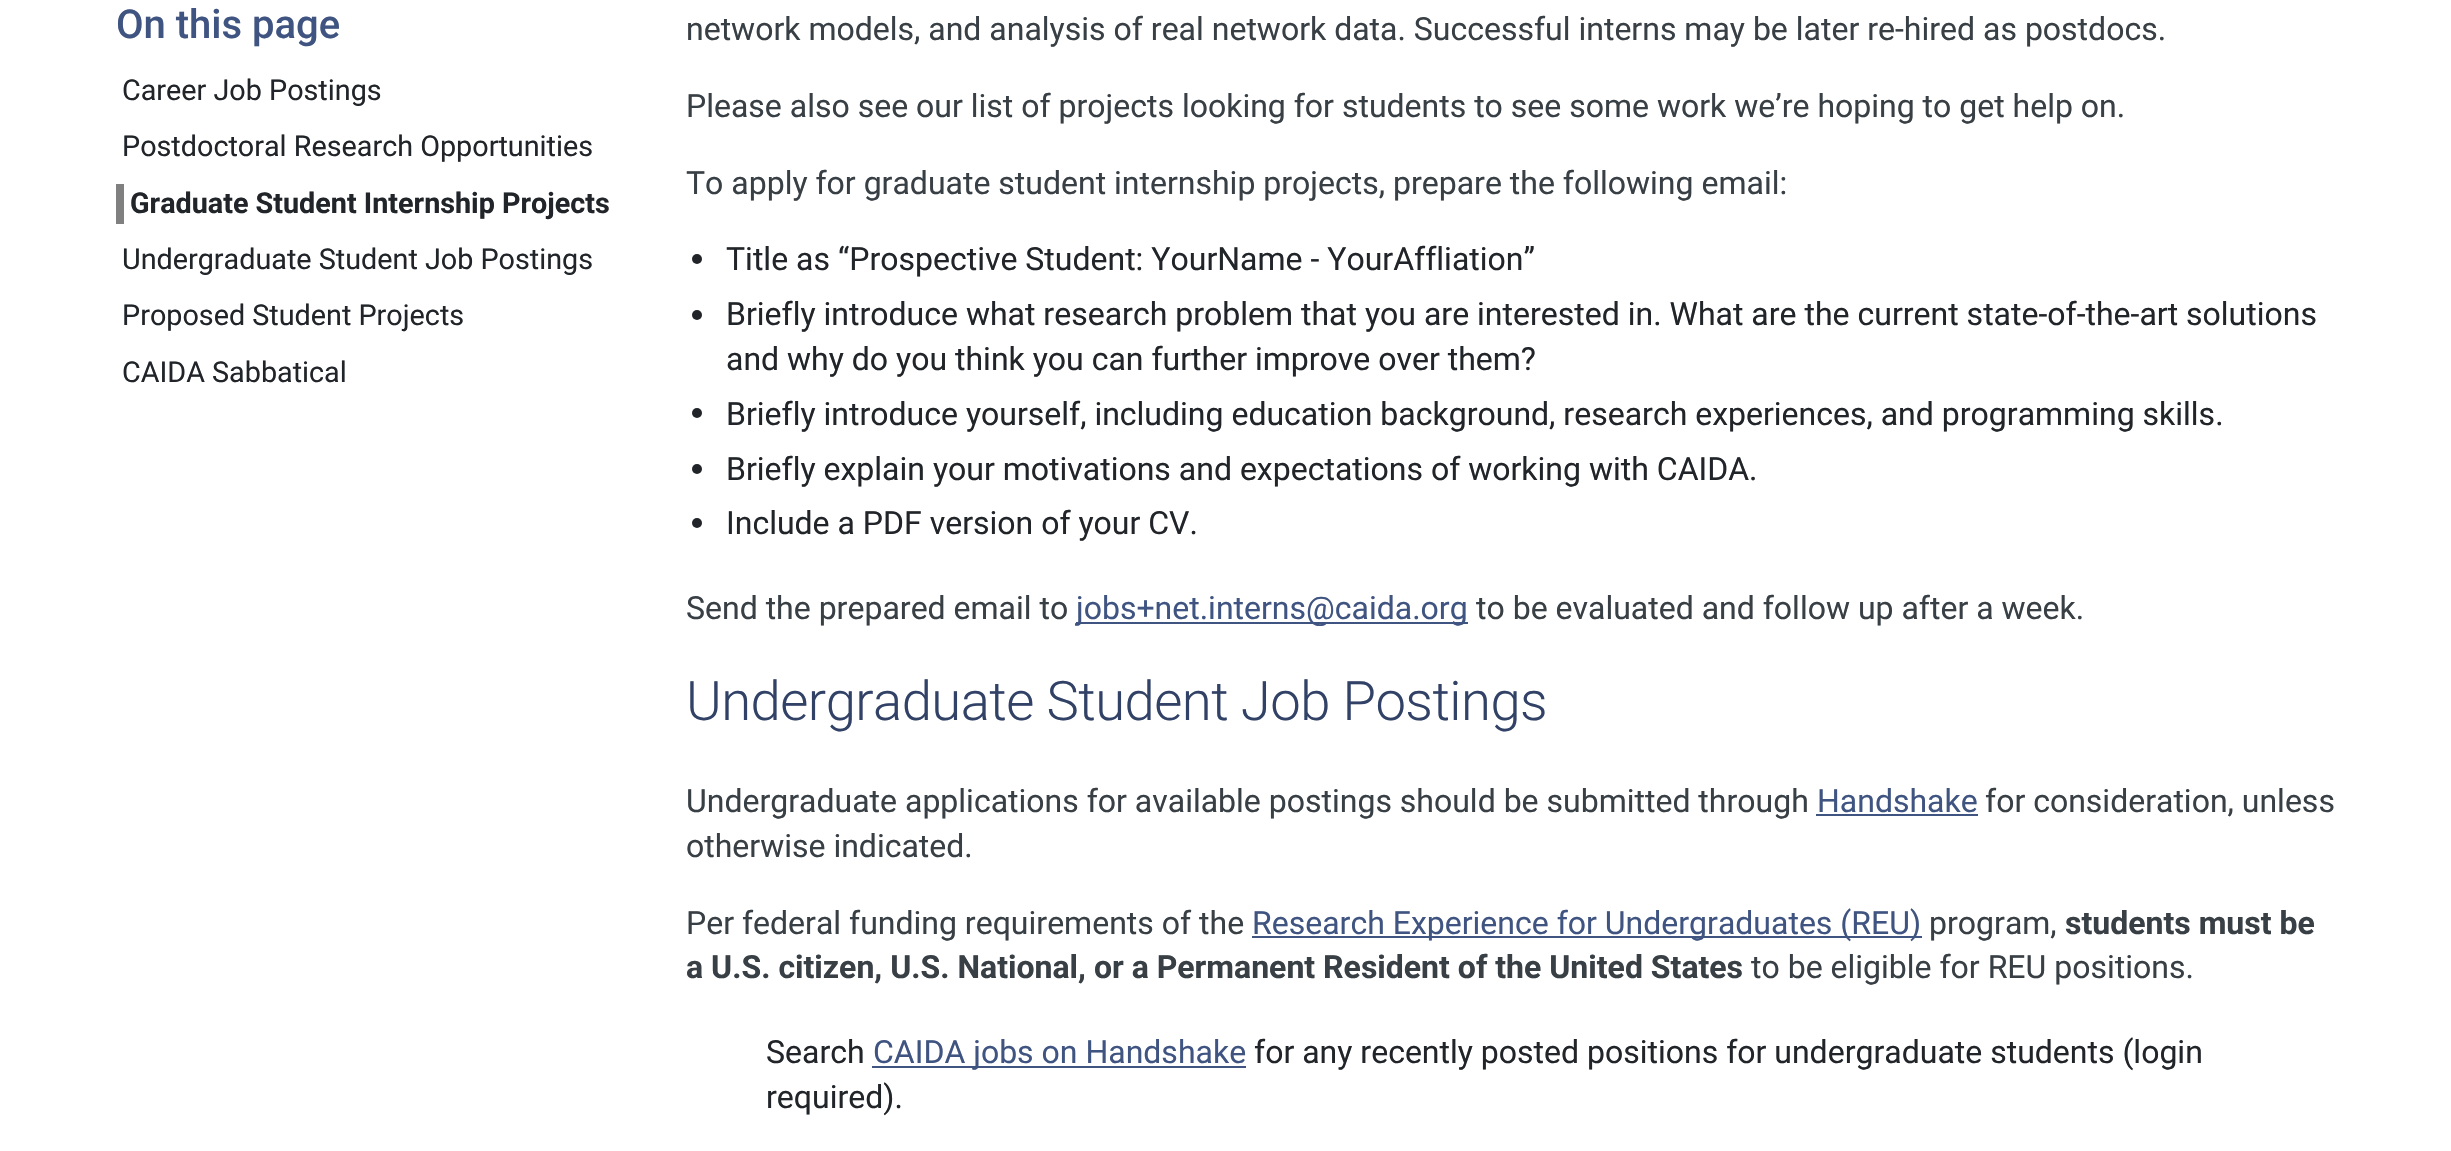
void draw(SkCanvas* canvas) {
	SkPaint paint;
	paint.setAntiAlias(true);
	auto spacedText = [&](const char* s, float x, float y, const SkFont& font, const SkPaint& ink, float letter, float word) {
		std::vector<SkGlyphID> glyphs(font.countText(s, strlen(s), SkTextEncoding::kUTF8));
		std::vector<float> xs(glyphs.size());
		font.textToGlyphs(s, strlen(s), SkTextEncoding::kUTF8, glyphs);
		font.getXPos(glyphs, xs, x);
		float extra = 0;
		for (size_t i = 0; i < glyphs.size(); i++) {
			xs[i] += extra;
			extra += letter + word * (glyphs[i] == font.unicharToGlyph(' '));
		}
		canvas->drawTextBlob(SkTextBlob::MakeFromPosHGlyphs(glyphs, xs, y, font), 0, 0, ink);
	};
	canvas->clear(0xffffffff);
	SkFont f1(fontMgr->matchFamilyStyle("Roboto", SkFontStyle(500, SkFontStyle::kNormal_Width, SkFontStyle::kUpright_Slant)), 40);
	f1.setSubpixel(true);
	paint.setColor(0xff3f5481);
	canvas->drawString("On this page", 116, 38, f1, paint);
	SkFont f2(fontMgr->matchFamilyStyle("Roboto", SkFontStyle::Normal()), 28.75);
	f2.setSubpixel(true);
	paint.setColor(0xff212529);
	canvas->drawString("Career Job Postings", 122, 100, f2, paint);
	canvas->drawString("Postdoctoral Research Opportunities", 122, 156, f2, paint);
	paint.setColor(0xff808080);
	canvas->drawRect(SkRect::MakeXYWH(116, 184, 8, 40), paint);
	SkFont f3(fontMgr->matchFamilyStyle("Roboto", SkFontStyle::Bold()), 28.75);
	f3.setSubpixel(true);
	paint.setColor(0xff212529);
	canvas->drawString("Graduate Student Internship Projects", 130, 213, f3, paint);
	canvas->drawString("Undergraduate Student Job Postings", 122, 269, f2, paint);
	canvas->drawString("Proposed Student Projects", 122, 325, f2, paint);
	canvas->drawString("CAIDA Sabbatical", 122, 382, f2, paint);
	SkFont f4(fontMgr->matchFamilyStyle("Roboto", SkFontStyle::Normal()), 32);
	f4.setSubpixel(true);
	paint.setColor(0xff383f45);
	canvas->drawString("network models, and analysis of real network data. Successful interns may be later re-hired as postdocs.", 686, 40, f4, paint);
	canvas->drawString("Please also see our list of projects looking for students to see some work we’re hoping to get help on.", 686, 117, f4, paint);
	canvas->drawString("To apply for graduate student internship projects, prepare the following email:", 686, 194, f4, paint);
	paint.setColor(0xff212529);
	canvas->drawCircle(697, 259, 5, paint);
	canvas->drawString("Title as “Prospective Student: YourName - YourAffliation”", 726, 270, f4, paint);
	canvas->drawCircle(697, 315, 5, paint);
	canvas->drawString("Briefly introduce what research problem that you are interested in. What are the current state-of-the-art solutions", 726, 325, f4, paint);
	canvas->drawString("and why do you think you can further improve over them?", 726, 370, f4, paint);
	canvas->drawCircle(697, 413, 5, paint);
	canvas->drawString("Briefly introduce yourself, including education background, research experiences, and programming skills.", 726, 425, f4, paint);
	canvas->drawCircle(697, 469, 5, paint);
	canvas->drawString("Briefly explain your motivations and expectations of working with CAIDA.", 726, 480, f4, paint);
	canvas->drawCircle(697, 523, 5, paint);
	canvas->drawString("Include a PDF version of your CV.", 726, 534, f4, paint);
	paint.setColor(0xff383f45);
	canvas->drawString("Send the prepared email to", 686, 619, f4, paint);
	paint.setColor(0xff3f5481);
	canvas->drawRect(SkRect::MakeXYWH(1076, 622, 392, 2), paint);
	canvas->drawString("jobs+net.interns@caida.org", 1076, 619, f4, paint);
	paint.setColor(0xff383f45);
	canvas->drawString("to be evaluated and follow up after a week.", 1476, 619, f4, paint);
	SkFont f5(fontMgr->matchFamilyStyle("Roboto", SkFontStyle(300, SkFontStyle::kNormal_Width, SkFontStyle::kUpright_Slant)), 54.4);
	f5.setSubpixel(true);
	paint.setColor(0xff324267);
	spacedText("Undergraduate Student Job Postings", 686, 720, f5, paint, -0.55, 0);
	paint.setColor(0xff383f45);
	canvas->drawString("Undergraduate applications for available postings should be submitted through", 686, 812, f4, paint);
	paint.setColor(0xff3f5481);
	canvas->drawString("Handshake", 1817, 812, f4, paint);
	canvas->drawRect(SkRect::MakeXYWH(1816, 814, 162, 2), paint);
	paint.setColor(0xff383f45);
	canvas->drawString("for consideration, unless", 1985, 812, f4, paint);
	canvas->drawString("otherwise indicated.", 686, 857, f4, paint);
	canvas->drawString("Per federal funding requirements of the", 686, 934, f4, paint);
	paint.setColor(0xff3f5481);
	canvas->drawRect(SkRect::MakeXYWH(1252, 936, 670, 2), paint);
	canvas->drawString("Research Experience for Undergraduates (REU)", 1252, 934, f4, paint);
	paint.setColor(0xff383f45);
	canvas->drawString("program,", 1929, 934, f4, paint);
	SkFont f6(fontMgr->matchFamilyStyle("Roboto", SkFontStyle::Bold()), 32);
	f6.setSubpixel(true);
	canvas->drawString("students must be", 2065, 934, f6, paint);
	canvas->drawString("a U.S. citizen, U.S. National, or a Permanent Resident of the United States", 686, 978, f6, paint);
	canvas->drawString("to be eligible for REU positions.", 1751, 978, f4, paint);
	paint.setColor(0xff212529);
	canvas->drawString("Search", 766, 1063, f4, paint);
	paint.setColor(0xff3f5481);
	canvas->drawRect(SkRect::MakeXYWH(872, 1066, 374, 2), paint);
	canvas->drawString("CAIDA jobs on Handshake", 873, 1063, f4, paint);
	paint.setColor(0xff212529);
	canvas->drawString("for any recently posted positions for undergraduate students (login", 1254, 1063, f4, paint);
	canvas->drawString("required).", 766, 1108, f4, paint);
}
